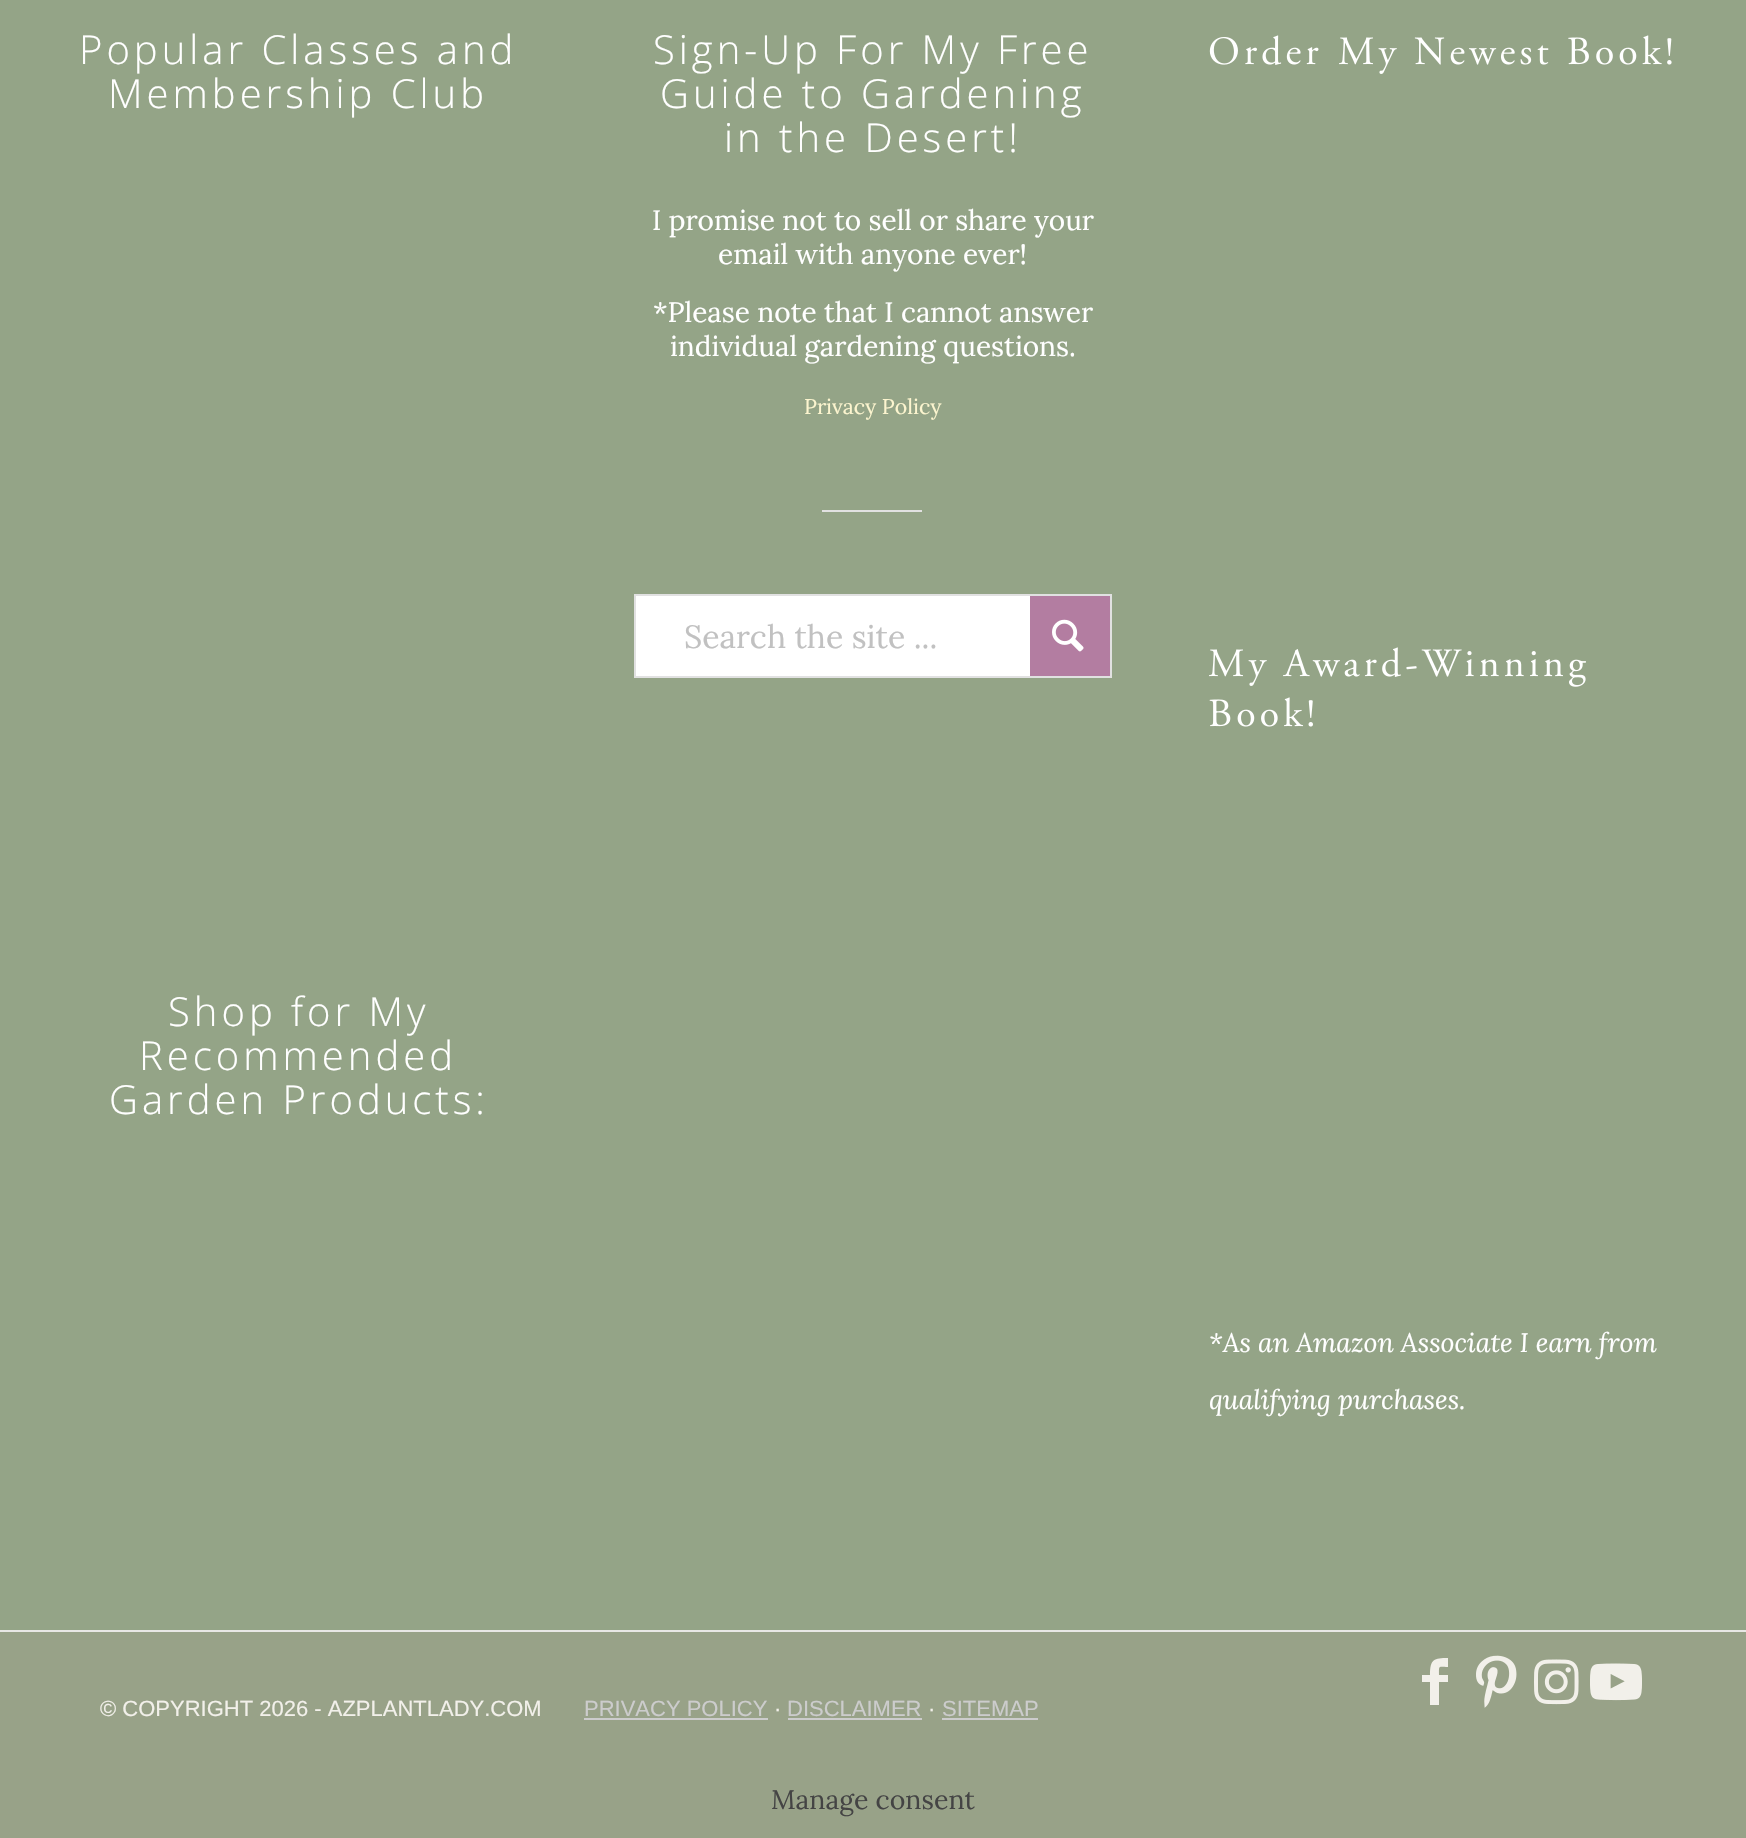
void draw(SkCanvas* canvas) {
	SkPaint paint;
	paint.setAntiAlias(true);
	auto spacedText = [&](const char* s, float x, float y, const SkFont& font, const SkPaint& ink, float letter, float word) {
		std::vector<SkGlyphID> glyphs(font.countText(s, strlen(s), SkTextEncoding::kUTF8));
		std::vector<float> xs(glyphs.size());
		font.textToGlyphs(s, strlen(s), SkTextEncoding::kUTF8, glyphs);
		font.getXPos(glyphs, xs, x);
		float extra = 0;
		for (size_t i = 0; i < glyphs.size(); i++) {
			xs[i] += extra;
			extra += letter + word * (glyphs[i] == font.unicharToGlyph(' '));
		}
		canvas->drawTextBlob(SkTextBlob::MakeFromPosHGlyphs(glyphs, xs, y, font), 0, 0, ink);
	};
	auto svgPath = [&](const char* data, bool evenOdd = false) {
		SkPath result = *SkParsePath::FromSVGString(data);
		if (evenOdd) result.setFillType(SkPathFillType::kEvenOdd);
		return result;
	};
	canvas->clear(0xff98a288);
	paint.setColor(0xff94a487);
	canvas->drawRect(SkRect::MakeXYWH(0, 0, 1746, 1630), paint);
	SkFont f1(fontMgr->matchFamilyStyle("Open Sans", SkFontStyle(300, SkFontStyle::kNormal_Width, SkFontStyle::kUpright_Slant)), 40);
	f1.setSubpixel(true);
	paint.setColor(0xffffffff);
	spacedText("Popular Classes and", 79, 64, f1, paint, 4, 0);
	spacedText("Membership Club", 108, 108, f1, paint, 4, 0);
	spacedText("Shop for My", 168, 1026, f1, paint, 4, 0);
	spacedText("Recommended", 139, 1070, f1, paint, 4, 0);
	spacedText("Garden Products:", 109, 1114, f1, paint, 4, 0);
	spacedText("Sign-Up For My Free", 653, 64, f1, paint, 4, 0);
	spacedText("Guide to Gardening", 660, 108, f1, paint, 4, 0);
	spacedText("in the Desert!", 724, 152, f1, paint, 4, 0);
	SkFont f2(fontMgr->matchFamilyStyle("Lora", SkFontStyle::Normal()), 28);
	f2.setSubpixel(true);
	canvas->drawString("I promise not to sell or share your", 652, 230, f2, paint);
	canvas->drawString("email with anyone ever!", 718, 264, f2, paint);
	canvas->drawString("*Please note that I cannot answer", 653, 322, f2, paint);
	canvas->drawString("individual gardening questions.", 670, 356, f2, paint);
	SkFont f3(fontMgr->matchFamilyStyle("Lora", SkFontStyle::Normal()), 21.25);
	f3.setSubpixel(true);
	paint.setColor(0xfffcf5cf);
	canvas->drawString("Privacy Policy", 804, 414, f3, paint);
	paint.setColor(0xffe1e1e1);
	canvas->drawRect(SkRect::MakeXYWH(822, 510, 100, 2), paint);
	paint.setStroke(true);
	paint.setStrokeWidth(2);
	canvas->drawRect(SkRect::MakeXYWH(635, 595, 476, 82), paint);
	paint.setStroke(false);
	paint.setColor(0xffffffff);
	canvas->drawRect(SkRect::MakeXYWH(636, 596, 394, 80), paint);
	SkFont f4(fontMgr->matchFamilyStyle("Lora", SkFontStyle::Normal()), 32);
	f4.setSubpixel(true);
	paint.setColor(0xffc1c1c1);
	canvas->drawString("Search the site ...", 684, 648, f4, paint);
	paint.setColor(0xffb37da1);
	canvas->drawRect(SkRect::MakeXYWH(1030, 596, 80, 80), paint);
	canvas->drawImageRect(SkImages::DeferredFromEncodedData(SkData::MakeFromFileName("img1.png")), SkRect::MakeXYWH(1052, 619, 32, 33), SkSamplingOptions());
	canvas->drawImageRect(SkImages::DeferredFromEncodedData(SkData::MakeFromFileName("img2.png")), SkRect::MakeXYWH(1209, 35, 110, 30), SkSamplingOptions());
	canvas->drawImageRect(SkImages::DeferredFromEncodedData(SkData::MakeFromFileName("img3.png")), SkRect::MakeXYWH(1339, 35, 333, 39), SkSamplingOptions());
	canvas->drawImageRect(SkImages::DeferredFromEncodedData(SkData::MakeFromFileName("img4.png")), SkRect::MakeXYWH(1209, 649, 58, 37), SkSamplingOptions());
	canvas->drawImageRect(SkImages::DeferredFromEncodedData(SkData::MakeFromFileName("img5.png")), SkRect::MakeXYWH(1283, 647, 303, 40), SkSamplingOptions());
	canvas->drawImageRect(SkImages::DeferredFromEncodedData(SkData::MakeFromFileName("img6.png")), SkRect::MakeXYWH(1209, 697, 104, 30), SkSamplingOptions());
	SkFont f5(fontMgr->matchFamilyStyle("Lora", SkFontStyle::Italic()), 26.7);
	f5.setSubpixel(true);
	paint.setColor(0xffffffff);
	canvas->drawString("*As an Amazon Associate I earn from", 1209, 1352, f5, paint);
	canvas->drawString("qualifying purchases.", 1209, 1409, f5, paint);
	paint.setColor(0xffe8e7e5);
	canvas->drawRect(SkRect::MakeXYWH(0, 1630, 1746, 2), paint);
	SkFont f6(fontMgr->matchFamilyStyle("Liberation Sans", SkFontStyle::Normal()), 22);
	f6.setSubpixel(true);
	paint.setColor(0xfff2f0ea);
	canvas->drawString("© COPYRIGHT 2026 - AZPLANTLADY.COM", 100, 1716, f6, paint);
	paint.setColor(0xffcccccc);
	canvas->drawString("PRIVACY POLICY", 584, 1716, f6, paint);
	canvas->drawRect(SkRect::MakeXYWH(584, 1718, 184, 2), paint);
	paint.setColor(0xfff2f0ea);
	canvas->drawString("·", 774, 1716, f6, paint);
	paint.setColor(0xffcccccc);
	canvas->drawString("DISCLAIMER", 787, 1716, f6, paint);
	canvas->drawRect(SkRect::MakeXYWH(788, 1718, 134, 2), paint);
	paint.setColor(0xfff2f0ea);
	canvas->drawString("·", 928, 1716, f6, paint);
	paint.setColor(0xffcccccc);
	canvas->drawString("SITEMAP", 942, 1716, f6, paint);
	canvas->drawRect(SkRect::MakeXYWH(942, 1718, 96, 2), paint);
	paint.setColor(0xfff2f0ea);
	canvas->drawPath(svgPath("M1448 1667C1438 1667 1439 1665 1439 1675H1448V1682H1439V1705H1430V1682H1422V1675H1430C1430 1659 1434 1658 1448 1658Z"), paint);
	canvas->drawImageRect(SkImages::DeferredFromEncodedData(SkData::MakeFromFileName("img7.png")), SkRect::MakeXYWH(1476, 1655, 41, 53), SkSamplingOptions());
	canvas->drawImageRect(SkImages::DeferredFromEncodedData(SkData::MakeFromFileName("img8.png")), SkRect::MakeXYWH(1534, 1659, 45, 46), SkSamplingOptions());
	canvas->drawImageRect(SkImages::DeferredFromEncodedData(SkData::MakeFromFileName("img9.png")), SkRect::MakeXYWH(1590, 1663, 52, 38), SkSamplingOptions());
	SkFont f7(fontMgr->matchFamilyStyle("Lora", SkFontStyle::Normal()), 26.7);
	f7.setSubpixel(true);
	paint.setColor(0xff444444);
	canvas->drawString("Manage consent", 771, 1809, f7, paint);
}
